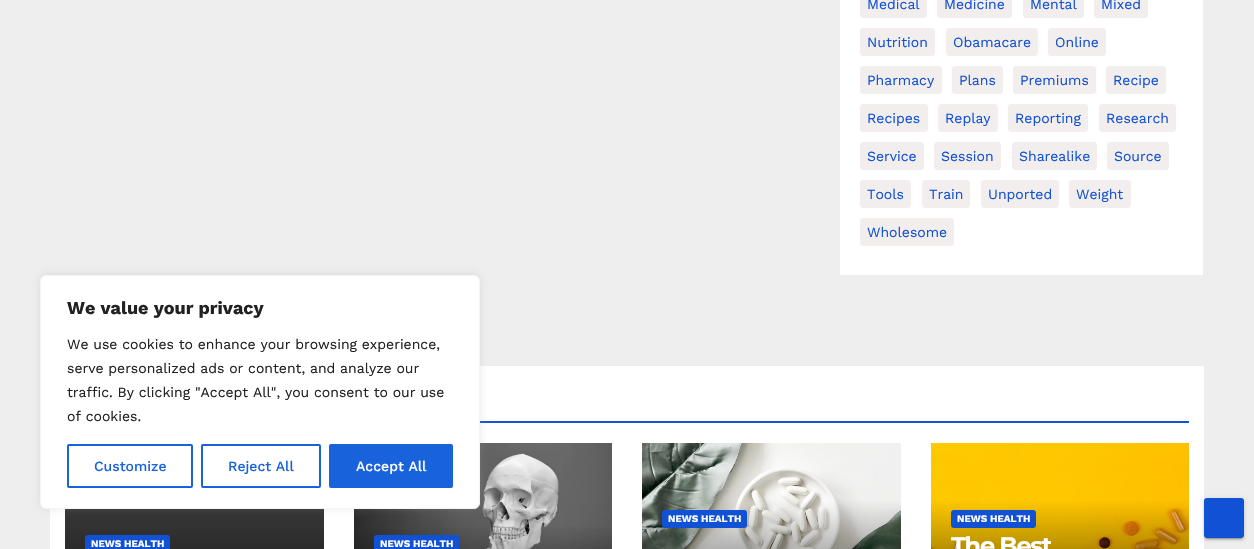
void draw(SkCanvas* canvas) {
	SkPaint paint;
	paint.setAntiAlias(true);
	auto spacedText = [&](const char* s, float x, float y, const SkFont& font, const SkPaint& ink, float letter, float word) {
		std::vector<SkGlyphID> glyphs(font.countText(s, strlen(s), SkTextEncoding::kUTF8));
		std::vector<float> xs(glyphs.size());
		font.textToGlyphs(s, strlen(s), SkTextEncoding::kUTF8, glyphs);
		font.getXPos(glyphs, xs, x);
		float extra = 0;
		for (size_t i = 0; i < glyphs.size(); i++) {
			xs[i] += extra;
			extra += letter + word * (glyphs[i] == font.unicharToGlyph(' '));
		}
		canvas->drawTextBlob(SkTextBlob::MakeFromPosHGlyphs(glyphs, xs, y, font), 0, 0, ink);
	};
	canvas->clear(0xffeeeeee);
	paint.setColor(0xffffffff);
	canvas->drawRect(SkRect::MakeXYWH(840, 0, 363, 275), paint);
	paint.setColor(0xfff3eeee);
	canvas->drawRoundRect(SkRect::MakeXYWH(860.5, -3.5, 66, 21), 2.5, 2.5, paint);
	paint.setStroke(true);
	paint.setStrokeWidth(1);
	canvas->drawRoundRect(SkRect::MakeXYWH(860.5, -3.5, 66, 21), 2.5, 2.5, paint);
	SkFont f1(fontMgr->matchFamilyStyle("Work Sans", SkFontStyle::Normal()), 14);
	f1.setSubpixel(true);
	paint.setStroke(false);
	paint.setColor(0xff1151d3);
	canvas->drawString("Medical", 867, 9, f1, paint);
	paint.setColor(0xfff3eeee);
	canvas->drawRoundRect(SkRect::MakeXYWH(937.5, -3.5, 74, 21), 2.5, 2.5, paint);
	paint.setStroke(true);
	canvas->drawRoundRect(SkRect::MakeXYWH(937.5, -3.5, 74, 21), 2.5, 2.5, paint);
	paint.setStroke(false);
	paint.setColor(0xff1151d3);
	canvas->drawString("Medicine", 944, 9, f1, paint);
	paint.setColor(0xfff3eeee);
	canvas->drawRoundRect(SkRect::MakeXYWH(1023.5, -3.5, 60, 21), 2.5, 2.5, paint);
	paint.setStroke(true);
	canvas->drawRoundRect(SkRect::MakeXYWH(1023.5, -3.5, 60, 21), 2.5, 2.5, paint);
	paint.setStroke(false);
	paint.setColor(0xff1151d3);
	canvas->drawString("Mental", 1030, 9, f1, paint);
	paint.setColor(0xfff3eeee);
	canvas->drawRoundRect(SkRect::MakeXYWH(1094.5, -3.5, 53, 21), 2.5, 2.5, paint);
	paint.setStroke(true);
	canvas->drawRoundRect(SkRect::MakeXYWH(1094.5, -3.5, 53, 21), 2.5, 2.5, paint);
	paint.setStroke(false);
	paint.setColor(0xff1151d3);
	canvas->drawString("Mixed", 1101, 9, f1, paint);
	paint.setColor(0xfff3eeee);
	canvas->drawRoundRect(SkRect::MakeXYWH(860.5, 28.5, 74, 27), 2.5, 2.5, paint);
	paint.setStroke(true);
	canvas->drawRoundRect(SkRect::MakeXYWH(860.5, 28.5, 74, 27), 2.5, 2.5, paint);
	paint.setStroke(false);
	paint.setColor(0xff1151d3);
	canvas->drawString("Nutrition", 867, 47, f1, paint);
	paint.setColor(0xfff3eeee);
	canvas->drawRoundRect(SkRect::MakeXYWH(946.5, 28.5, 91, 27), 2.5, 2.5, paint);
	paint.setStroke(true);
	canvas->drawRoundRect(SkRect::MakeXYWH(946.5, 28.5, 91, 27), 2.5, 2.5, paint);
	paint.setStroke(false);
	paint.setColor(0xff1151d3);
	canvas->drawString("Obamacare", 953, 47, f1, paint);
	paint.setColor(0xfff3eeee);
	canvas->drawRoundRect(SkRect::MakeXYWH(1048.5, 28.5, 57, 27), 2.5, 2.5, paint);
	paint.setStroke(true);
	canvas->drawRoundRect(SkRect::MakeXYWH(1048.5, 28.5, 57, 27), 2.5, 2.5, paint);
	paint.setStroke(false);
	paint.setColor(0xff1151d3);
	canvas->drawString("Online", 1055, 47, f1, paint);
	paint.setColor(0xfff3eeee);
	canvas->drawRoundRect(SkRect::MakeXYWH(860.5, 66.5, 81, 27), 2.5, 2.5, paint);
	paint.setStroke(true);
	canvas->drawRoundRect(SkRect::MakeXYWH(860.5, 66.5, 81, 27), 2.5, 2.5, paint);
	paint.setStroke(false);
	paint.setColor(0xff1151d3);
	canvas->drawString("Pharmacy", 867, 85, f1, paint);
	paint.setColor(0xfff3eeee);
	canvas->drawRoundRect(SkRect::MakeXYWH(952.5, 66.5, 50, 27), 2.5, 2.5, paint);
	paint.setStroke(true);
	canvas->drawRoundRect(SkRect::MakeXYWH(952.5, 66.5, 50, 27), 2.5, 2.5, paint);
	paint.setStroke(false);
	paint.setColor(0xff1151d3);
	canvas->drawString("Plans", 959, 85, f1, paint);
	paint.setColor(0xfff3eeee);
	canvas->drawRoundRect(SkRect::MakeXYWH(1013.5, 66.5, 82, 27), 2.5, 2.5, paint);
	paint.setStroke(true);
	canvas->drawRoundRect(SkRect::MakeXYWH(1013.5, 66.5, 82, 27), 2.5, 2.5, paint);
	paint.setStroke(false);
	paint.setColor(0xff1151d3);
	canvas->drawString("Premiums", 1020, 85, f1, paint);
	paint.setColor(0xfff3eeee);
	canvas->drawRoundRect(SkRect::MakeXYWH(1106.5, 66.5, 59, 27), 2.5, 2.5, paint);
	paint.setStroke(true);
	canvas->drawRoundRect(SkRect::MakeXYWH(1106.5, 66.5, 59, 27), 2.5, 2.5, paint);
	paint.setStroke(false);
	paint.setColor(0xff1151d3);
	canvas->drawString("Recipe", 1113, 85, f1, paint);
	paint.setColor(0xfff3eeee);
	canvas->drawRoundRect(SkRect::MakeXYWH(860.5, 104.5, 67, 27), 2.5, 2.5, paint);
	paint.setStroke(true);
	canvas->drawRoundRect(SkRect::MakeXYWH(860.5, 104.5, 67, 27), 2.5, 2.5, paint);
	paint.setStroke(false);
	paint.setColor(0xff1151d3);
	canvas->drawString("Recipes", 867, 123, f1, paint);
	paint.setColor(0xfff3eeee);
	canvas->drawRoundRect(SkRect::MakeXYWH(938.5, 104.5, 59, 27), 2.5, 2.5, paint);
	paint.setStroke(true);
	canvas->drawRoundRect(SkRect::MakeXYWH(938.5, 104.5, 59, 27), 2.5, 2.5, paint);
	paint.setStroke(false);
	paint.setColor(0xff1151d3);
	canvas->drawString("Replay", 945, 123, f1, paint);
	paint.setColor(0xfff3eeee);
	canvas->drawRoundRect(SkRect::MakeXYWH(1008.5, 104.5, 79, 27), 2.5, 2.5, paint);
	paint.setStroke(true);
	canvas->drawRoundRect(SkRect::MakeXYWH(1008.5, 104.5, 79, 27), 2.5, 2.5, paint);
	paint.setStroke(false);
	paint.setColor(0xff1151d3);
	canvas->drawString("Reporting", 1015, 123, f1, paint);
	paint.setColor(0xfff3eeee);
	canvas->drawRoundRect(SkRect::MakeXYWH(1099.5, 104.5, 76, 27), 2.5, 2.5, paint);
	paint.setStroke(true);
	canvas->drawRoundRect(SkRect::MakeXYWH(1099.5, 104.5, 76, 27), 2.5, 2.5, paint);
	paint.setStroke(false);
	paint.setColor(0xff1151d3);
	canvas->drawString("Research", 1106, 123, f1, paint);
	paint.setColor(0xfff3eeee);
	canvas->drawRoundRect(SkRect::MakeXYWH(860.5, 142.5, 63, 27), 2.5, 2.5, paint);
	paint.setStroke(true);
	canvas->drawRoundRect(SkRect::MakeXYWH(860.5, 142.5, 63, 27), 2.5, 2.5, paint);
	paint.setStroke(false);
	paint.setColor(0xff1151d3);
	canvas->drawString("Service", 867, 161, f1, paint);
	paint.setColor(0xfff3eeee);
	canvas->drawRoundRect(SkRect::MakeXYWH(934.5, 142.5, 66, 27), 2.5, 2.5, paint);
	paint.setStroke(true);
	canvas->drawRoundRect(SkRect::MakeXYWH(934.5, 142.5, 66, 27), 2.5, 2.5, paint);
	paint.setStroke(false);
	paint.setColor(0xff1151d3);
	canvas->drawString("Session", 941, 161, f1, paint);
	paint.setColor(0xfff3eeee);
	canvas->drawRoundRect(SkRect::MakeXYWH(1012.5, 142.5, 84, 27), 2.5, 2.5, paint);
	paint.setStroke(true);
	canvas->drawRoundRect(SkRect::MakeXYWH(1012.5, 142.5, 84, 27), 2.5, 2.5, paint);
	paint.setStroke(false);
	paint.setColor(0xff1151d3);
	canvas->drawString("Sharealike", 1019, 161, f1, paint);
	paint.setColor(0xfff3eeee);
	canvas->drawRoundRect(SkRect::MakeXYWH(1107.5, 142.5, 61, 27), 2.5, 2.5, paint);
	paint.setStroke(true);
	canvas->drawRoundRect(SkRect::MakeXYWH(1107.5, 142.5, 61, 27), 2.5, 2.5, paint);
	paint.setStroke(false);
	paint.setColor(0xff1151d3);
	canvas->drawString("Source", 1114, 161, f1, paint);
	paint.setColor(0xfff3eeee);
	canvas->drawRoundRect(SkRect::MakeXYWH(860.5, 180.5, 50, 27), 2.5, 2.5, paint);
	paint.setStroke(true);
	canvas->drawRoundRect(SkRect::MakeXYWH(860.5, 180.5, 50, 27), 2.5, 2.5, paint);
	paint.setStroke(false);
	paint.setColor(0xff1151d3);
	canvas->drawString("Tools", 867, 199, f1, paint);
	paint.setColor(0xfff3eeee);
	canvas->drawRoundRect(SkRect::MakeXYWH(922.5, 180.5, 47, 27), 2.5, 2.5, paint);
	paint.setStroke(true);
	canvas->drawRoundRect(SkRect::MakeXYWH(922.5, 180.5, 47, 27), 2.5, 2.5, paint);
	paint.setStroke(false);
	paint.setColor(0xff1151d3);
	canvas->drawString("Train", 929, 199, f1, paint);
	paint.setColor(0xfff3eeee);
	canvas->drawRoundRect(SkRect::MakeXYWH(981.5, 180.5, 77, 27), 2.5, 2.5, paint);
	paint.setStroke(true);
	canvas->drawRoundRect(SkRect::MakeXYWH(981.5, 180.5, 77, 27), 2.5, 2.5, paint);
	paint.setStroke(false);
	paint.setColor(0xff1151d3);
	canvas->drawString("Unported", 988, 199, f1, paint);
	paint.setColor(0xfff3eeee);
	canvas->drawRoundRect(SkRect::MakeXYWH(1069.5, 180.5, 61, 27), 2.5, 2.5, paint);
	paint.setStroke(true);
	canvas->drawRoundRect(SkRect::MakeXYWH(1069.5, 180.5, 61, 27), 2.5, 2.5, paint);
	paint.setStroke(false);
	paint.setColor(0xff1151d3);
	canvas->drawString("Weight", 1076, 199, f1, paint);
	paint.setColor(0xfff3eeee);
	canvas->drawRoundRect(SkRect::MakeXYWH(860.5, 218.5, 93, 27), 2.5, 2.5, paint);
	paint.setStroke(true);
	canvas->drawRoundRect(SkRect::MakeXYWH(860.5, 218.5, 93, 27), 2.5, 2.5, paint);
	paint.setStroke(false);
	paint.setColor(0xff1151d3);
	canvas->drawString("Wholesome", 867, 237, f1, paint);
	paint.setColor(0xffffffff);
	canvas->drawRect(SkRect::MakeXYWH(50, 366, 1154, 183), paint);
	paint.setColor(0xff1151d3);
	canvas->drawRect(SkRect::MakeXYWH(480, 421, 709, 2), paint);
	paint.setColor(0xff333333);
	canvas->drawRect(SkRect::MakeXYWH(65, 509, 259, 16), paint);
	{
		const SkColor colors[] = {0xff333333, 0xff1f1f1f, 0xff0f0f0f};
		const float stops[] = {0, 0.5, 1};
		const SkPoint ends[] = {{195, 525}, {195, 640}};
		paint.setShader(SkGradientShader::MakeLinear(ends, colors, stops, 3, SkTileMode::kClamp));
		paint.setAlpha(255);
	}
	canvas->drawRect(SkRect::MakeXYWH(65, 525, 259, 24), paint);
	paint.setShader(nullptr);
	paint.setColor(0xff1151d3);
	canvas->drawRoundRect(SkRect::MakeXYWH(85, 535, 85, 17), 3, 3, paint);
	SkFont f2(fontMgr->matchFamilyStyle("Work Sans", SkFontStyle::Bold()), 10);
	f2.setSubpixel(true);
	paint.setColor(0xffffffff);
	canvas->drawString("NEWS HEALTH", 91, 547, f2, paint);
	canvas->drawImageRect(SkImages::DeferredFromEncodedData(SkData::MakeFromFileName("img1.png")), SkRect::MakeXYWH(354, 443, 258, 106), SkSamplingOptions());
	paint.setColor(0xff1151d3);
	canvas->drawRoundRect(SkRect::MakeXYWH(374, 535, 85, 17), 3, 3, paint);
	paint.setColor(0xffffffff);
	canvas->drawString("NEWS HEALTH", 380, 547, f2, paint);
	canvas->drawImageRect(SkImages::DeferredFromEncodedData(SkData::MakeFromFileName("img2.png")), SkRect::MakeXYWH(642, 443, 259, 106), SkSamplingOptions());
	paint.setColor(0xff1151d3);
	canvas->drawRoundRect(SkRect::MakeXYWH(662, 510, 85, 18), 3, 3, paint);
	paint.setColor(0xffffffff);
	canvas->drawString("NEWS HEALTH", 668, 522, f2, paint);
	canvas->drawImageRect(SkImages::DeferredFromEncodedData(SkData::MakeFromFileName("img3.png")), SkRect::MakeXYWH(931, 443, 258, 106), SkSamplingOptions());
	paint.setColor(0xff1151d3);
	canvas->drawRoundRect(SkRect::MakeXYWH(951, 510, 85, 18), 3, 3, paint);
	paint.setColor(0xffffffff);
	canvas->drawString("NEWS HEALTH", 957, 522, f2, paint);
	canvas->save();
	canvas->clipRect(SkRect::MakeXYWH(951, 533, 218, 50));
	SkFont f3(fontMgr->matchFamilyStyle("Montserrat", SkFontStyle::Bold()), 24);
	f3.setSubpixel(true);
	spacedText("The Best", 951, 554, f3, paint, -1.25, 0);
	canvas->restore();
	paint.setColor(0x4dacabab);
	paint.setMaskFilter(SkMaskFilter::MakeBlur(kNormal_SkBlurStyle, 5));
	canvas->drawRoundRect(SkRect::MakeXYWH(40, 274, 440, 234), 6, 6, paint);
	paint.setMaskFilter(nullptr);
	paint.setColor(0xffffffff);
	canvas->drawRoundRect(SkRect::MakeXYWH(40.5, 275.5, 439, 233), 5.5, 5.5, paint);
	paint.setStroke(true);
	paint.setColor(0xfff4f4f4);
	canvas->drawRoundRect(SkRect::MakeXYWH(40.5, 275.5, 439, 233), 5.5, 5.5, paint);
	SkFont f4(fontMgr->matchFamilyStyle("Work Sans", SkFontStyle::Bold()), 18);
	f4.setSubpixel(true);
	paint.setStroke(false);
	paint.setColor(0xff212121);
	canvas->drawString("We value your privacy", 67, 314, f4, paint);
	canvas->drawString("We use cookies to enhance your browsing experience,", 67, 349, f1, paint);
	canvas->drawString("serve personalized ads or content, and analyze our", 67, 373, f1, paint);
	canvas->drawString("traffic. By clicking \"Accept All\", you consent to our use", 67, 397, f1, paint);
	canvas->drawString("of cookies.", 67, 421, f1, paint);
	paint.setStroke(true);
	paint.setStrokeWidth(2);
	paint.setColor(0xff1863dc);
	canvas->drawRoundRect(SkRect::MakeXYWH(68, 445, 124, 42), 1, 1, paint);
	SkFont f5(fontMgr->matchFamilyStyle("Work Sans", SkFontStyle(500, SkFontStyle::kNormal_Width, SkFontStyle::kUpright_Slant)), 14);
	f5.setSubpixel(true);
	paint.setStroke(false);
	canvas->drawString("Customize", 94, 471, f5, paint);
	paint.setStroke(true);
	canvas->drawRoundRect(SkRect::MakeXYWH(202, 445, 118, 42), 1, 1, paint);
	paint.setStroke(false);
	canvas->drawString("Reject All", 228, 471, f5, paint);
	canvas->drawRoundRect(SkRect::MakeXYWH(330, 445, 122, 42), 1, 1, paint);
	paint.setStroke(true);
	canvas->drawRoundRect(SkRect::MakeXYWH(330, 445, 122, 42), 1, 1, paint);
	paint.setStroke(false);
	paint.setColor(0xffffffff);
	canvas->drawString("Accept All", 356, 471, f5, paint);
	paint.setColor(0x1f000000);
	paint.setMaskFilter(SkMaskFilter::MakeBlur(kNormal_SkBlurStyle, 2.5));
	canvas->drawRoundRect(SkRect::MakeXYWH(1204, 499, 40, 40), 3, 3, paint);
	paint.setMaskFilter(nullptr);
	paint.setColor(0x33000000);
	paint.setMaskFilter(SkMaskFilter::MakeBlur(kNormal_SkBlurStyle, 0.5));
	canvas->drawRoundRect(SkRect::MakeXYWH(1206, 503, 36, 36), 1, 1, paint);
	paint.setMaskFilter(nullptr);
	paint.setColor(0x24000000);
	paint.setMaskFilter(SkMaskFilter::MakeBlur(kNormal_SkBlurStyle, 1));
	canvas->drawRoundRect(SkRect::MakeXYWH(1204, 500, 40, 40), 3, 3, paint);
	paint.setMaskFilter(nullptr);
	paint.setColor(0xff1151d3);
	canvas->drawRoundRect(SkRect::MakeXYWH(1205, 499, 38, 38), 2, 2, paint);
	paint.setStroke(true);
	canvas->drawRoundRect(SkRect::MakeXYWH(1205, 499, 38, 38), 2, 2, paint);
}
